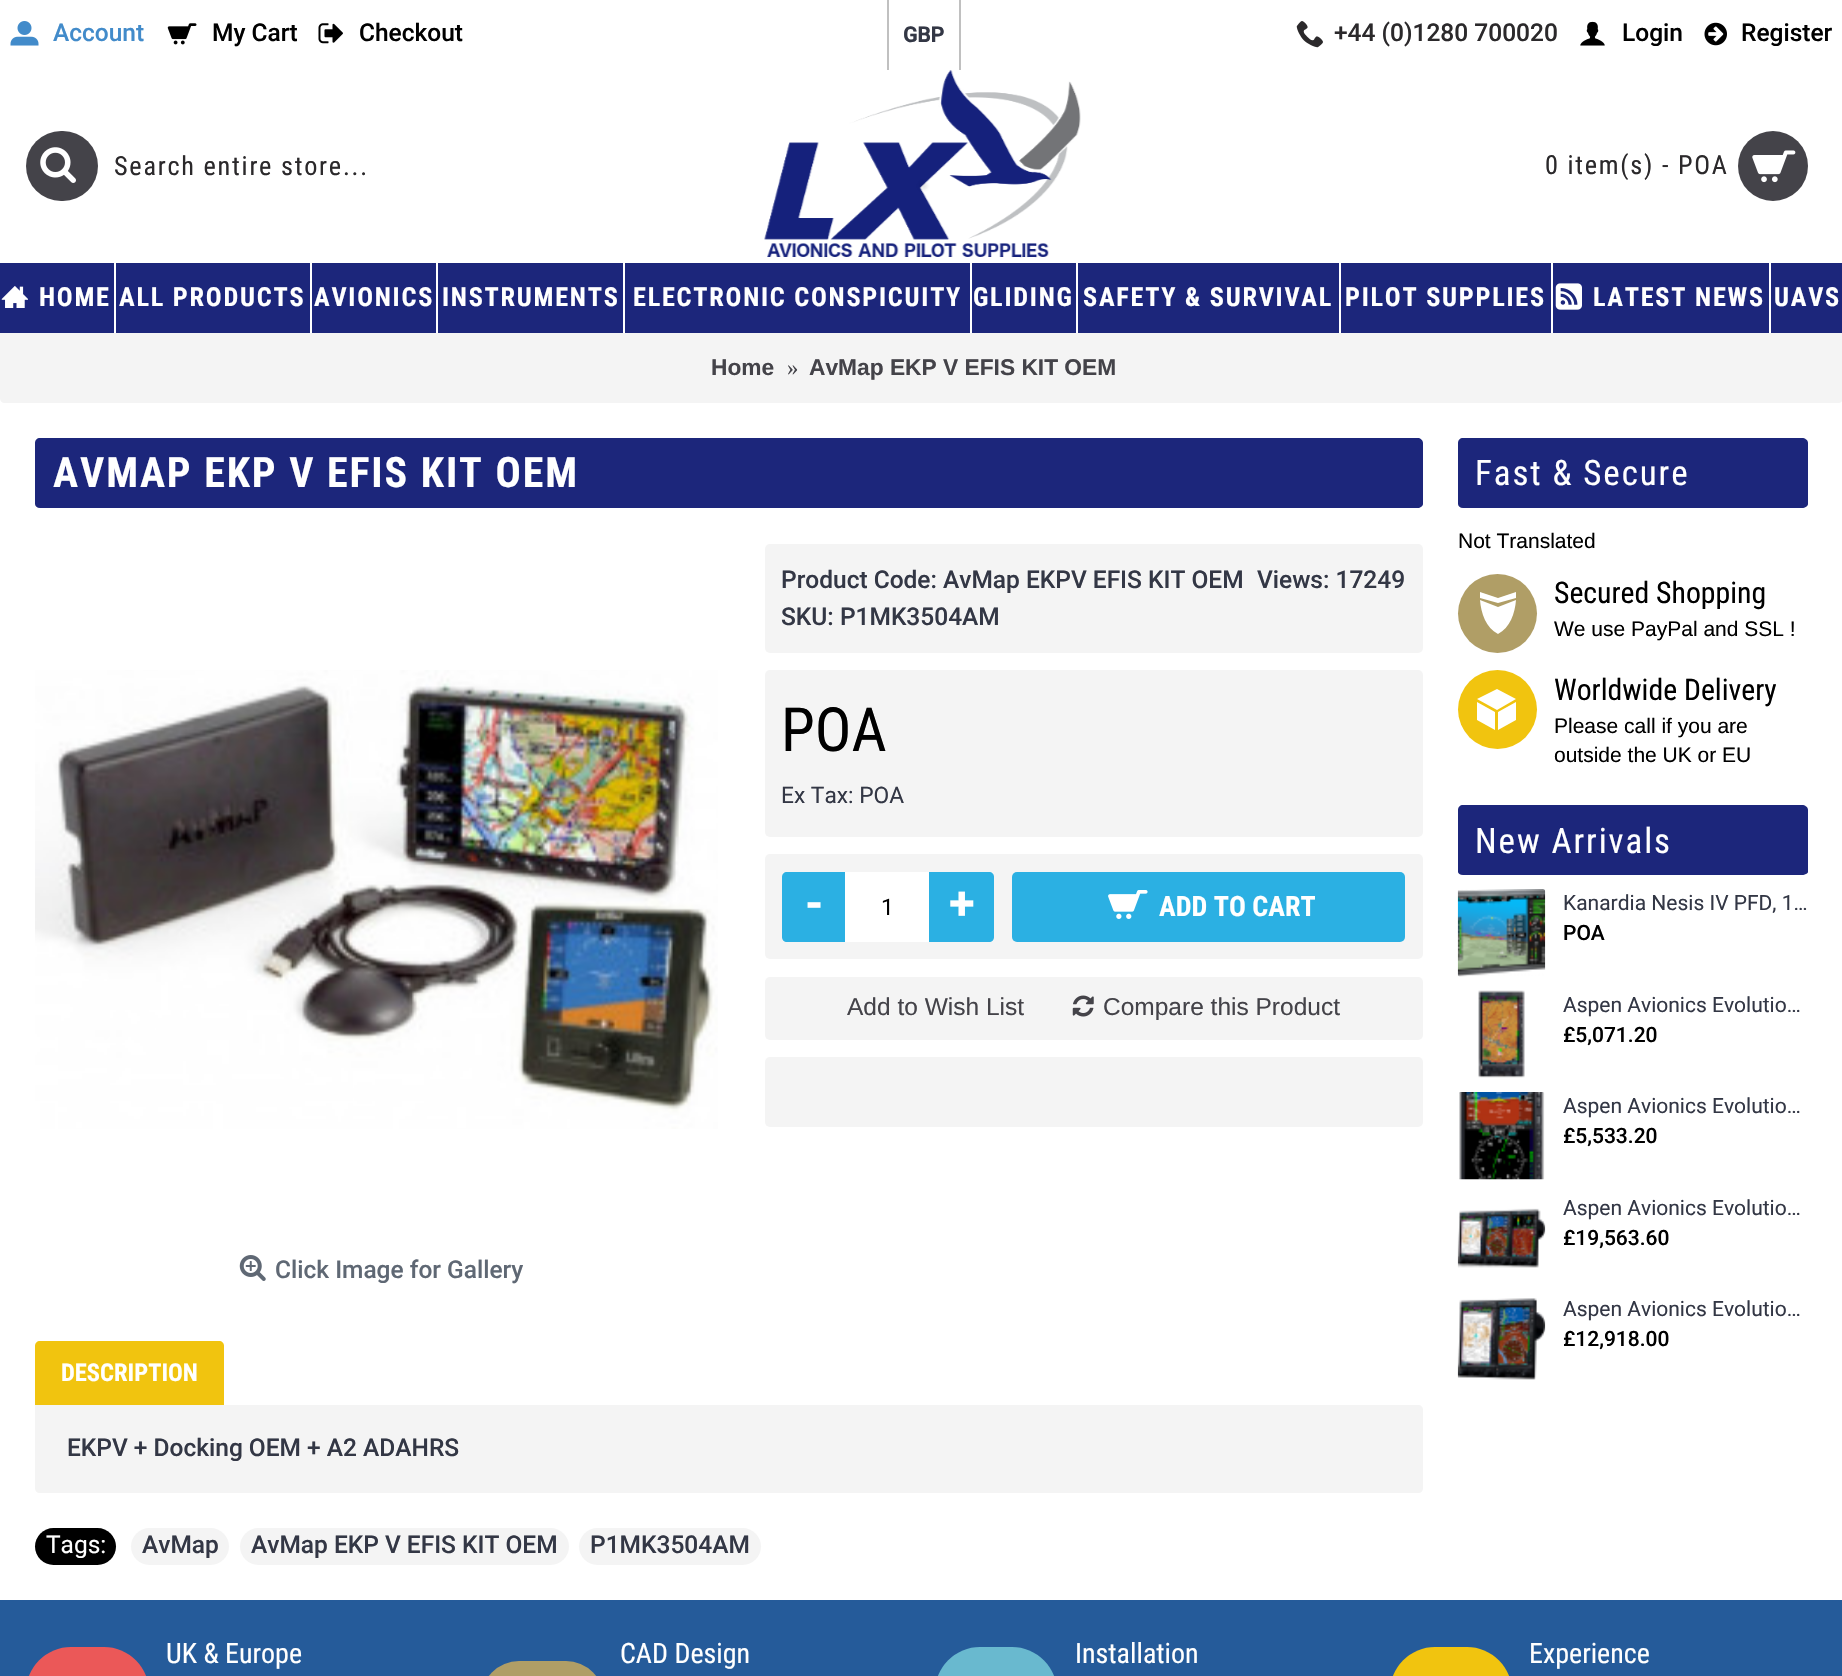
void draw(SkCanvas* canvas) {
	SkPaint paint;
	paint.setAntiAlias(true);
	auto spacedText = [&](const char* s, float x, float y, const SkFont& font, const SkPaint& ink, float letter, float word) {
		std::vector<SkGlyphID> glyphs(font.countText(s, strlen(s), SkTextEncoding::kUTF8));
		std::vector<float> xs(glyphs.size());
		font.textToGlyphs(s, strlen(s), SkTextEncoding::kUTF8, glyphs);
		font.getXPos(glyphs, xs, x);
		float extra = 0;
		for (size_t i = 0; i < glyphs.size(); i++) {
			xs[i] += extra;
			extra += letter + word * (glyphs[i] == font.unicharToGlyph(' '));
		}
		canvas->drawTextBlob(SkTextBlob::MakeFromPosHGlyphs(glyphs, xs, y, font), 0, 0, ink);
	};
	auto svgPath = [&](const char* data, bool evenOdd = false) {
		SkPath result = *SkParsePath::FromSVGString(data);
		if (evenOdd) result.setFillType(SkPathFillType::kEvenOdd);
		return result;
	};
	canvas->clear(0xffffffff);
	canvas->drawImageRect(SkImages::DeferredFromEncodedData(SkData::MakeFromFileName("img1.png")), SkRect::MakeXYWH(10, 21, 29, 25), SkSamplingOptions());
	SkFont f1(fontMgr->matchFamilyStyle("Roboto", SkFontStyle(500, SkFontStyle::kNormal_Width, SkFontStyle::kUpright_Slant)), 24.5);
	f1.setSubpixel(true);
	paint.setColor(0xff428bca);
	canvas->drawString("Account", 53, 41, f1, paint);
	canvas->drawImageRect(SkImages::DeferredFromEncodedData(SkData::MakeFromFileName("img2.png")), SkRect::MakeXYWH(167, 23, 30, 22), SkSamplingOptions());
	paint.setColor(0xff000000);
	canvas->drawString("My Cart", 212, 41, f1, paint);
	canvas->drawImageRect(SkImages::DeferredFromEncodedData(SkData::MakeFromFileName("img3.png")), SkRect::MakeXYWH(318, 23, 25, 21), SkSamplingOptions());
	canvas->drawString("Checkout", 359, 41, f1, paint);
	paint.setColor(0xffc0c0c0);
	canvas->drawRect(SkRect::MakeXYWH(959, 0, 2, 70), paint);
	canvas->drawRect(SkRect::MakeXYWH(887, 0, 2, 70), paint);
	SkFont f2(fontMgr->matchFamilyStyle("Roboto", SkFontStyle::Bold()), 21);
	f2.setSubpixel(true);
	paint.setColor(0xff333745);
	canvas->drawString("GBP", 903, 42, f2, paint);
	canvas->drawImageRect(SkImages::DeferredFromEncodedData(SkData::MakeFromFileName("img4.png")), SkRect::MakeXYWH(1296, 21, 27, 27), SkSamplingOptions());
	paint.setColor(0xff2b292b);
	canvas->drawString("+44 (0)1280 700020", 1334, 41, f1, paint);
	canvas->drawImageRect(SkImages::DeferredFromEncodedData(SkData::MakeFromFileName("img5.png")), SkRect::MakeXYWH(1580, 21, 25, 25), SkSamplingOptions());
	paint.setColor(0xff000000);
	canvas->drawString("Login", 1622, 41, f1, paint);
	canvas->drawImageRect(SkImages::DeferredFromEncodedData(SkData::MakeFromFileName("img6.png")), SkRect::MakeXYWH(1704, 22, 23, 24), SkSamplingOptions());
	canvas->drawString("Register", 1741, 41, f1, paint);
	paint.setColor(0xff444349);
	canvas->drawRoundRect(SkRect::MakeXYWH(26, 131, 72, 70), 35, 35, paint);
	canvas->drawImageRect(SkImages::DeferredFromEncodedData(SkData::MakeFromFileName("img7.png")), SkRect::MakeXYWH(40, 147, 36, 36), SkSamplingOptions());
	SkFont f3(fontMgr->matchFamilyStyle("Roboto Condensed", SkFontStyle::Normal()), 26.25);
	f3.setSubpixel(true);
	paint.setColor(0xff2b292b);
	spacedText("Search entire store...", 114, 175, f3, paint, 1.75, 0);
	canvas->drawImageRect(SkImages::DeferredFromEncodedData(SkData::MakeFromFileName("img8.png")), SkRect::MakeXYWH(764, 70, 317, 188), SkSamplingOptions());
	spacedText("0 item(s) - POA", 1545, 174, f3, paint, 1.75, 0);
	paint.setColor(0xff444349);
	canvas->drawCircle(1773, 166, 35, paint);
	canvas->drawImageRect(SkImages::DeferredFromEncodedData(SkData::MakeFromFileName("img9.png")), SkRect::MakeXYWH(1752, 150, 44, 33), SkSamplingOptions());
	paint.setColor(0xff1c267b);
	canvas->drawRect(SkRect::MakeXYWH(0, 263, 1842, 70), paint);
	canvas->drawImageRect(SkImages::DeferredFromEncodedData(SkData::MakeFromFileName("img10.png")), SkRect::MakeXYWH(1, 286, 27, 22), SkSamplingOptions());
	SkFont f4(fontMgr->matchFamilyStyle("Roboto Condensed", SkFontStyle::Bold()), 26.25);
	f4.setSubpixel(true);
	paint.setColor(0xffffffff);
	spacedText("HOME", 39, 306, f4, paint, 1.75, 0);
	canvas->drawRect(SkRect::MakeXYWH(114, 263, 2, 70), paint);
	spacedText("ALL PRODUCTS", 119, 306, f4, paint, 1.75, 0);
	canvas->drawRect(SkRect::MakeXYWH(310, 263, 2, 70), paint);
	spacedText("AVIONICS", 314, 306, f4, paint, 1.75, 0);
	canvas->drawRect(SkRect::MakeXYWH(436, 263, 2, 70), paint);
	spacedText("INSTRUMENTS", 442, 306, f4, paint, 1.75, 0);
	canvas->drawRect(SkRect::MakeXYWH(623, 263, 2, 70), paint);
	spacedText("ELECTRONIC CONSPICUITY", 633, 306, f4, paint, 1.75, 0);
	canvas->drawRect(SkRect::MakeXYWH(970, 263, 2, 70), paint);
	spacedText("GLIDING", 973, 306, f4, paint, 1.75, 0);
	canvas->drawRect(SkRect::MakeXYWH(1076, 263, 2, 70), paint);
	spacedText("SAFETY & SURVIVAL", 1083, 306, f4, paint, 1.75, 0);
	canvas->drawRect(SkRect::MakeXYWH(1339, 263, 2, 70), paint);
	spacedText("PILOT SUPPLIES", 1345, 306, f4, paint, 1.75, 0);
	canvas->drawRect(SkRect::MakeXYWH(1551, 263, 2, 70), paint);
	canvas->drawImageRect(SkImages::DeferredFromEncodedData(SkData::MakeFromFileName("img11.png")), SkRect::MakeXYWH(1555, 283, 27, 27), SkSamplingOptions());
	spacedText("LATEST NEWS", 1593, 306, f4, paint, 1.75, 0);
	canvas->drawRect(SkRect::MakeXYWH(1769, 263, 2, 70), paint);
	spacedText("UAVS", 1774, 306, f4, paint, 1.75, 0);
	paint.setColor(0xfff4f4f4);
	canvas->drawPath(svgPath("M0 333H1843V398C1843 401 1841 403 1838 403H5C2 403 0 401 0 398Z"), paint);
	SkFont f5(fontMgr->matchFamilyStyle("Liberation Sans", SkFontStyle::Bold()), 22.75);
	f5.setSubpixel(true);
	paint.setColor(0xff444349);
	canvas->drawString("Home", 711, 375, f5, paint);
	SkFont f6(fontMgr->matchFamilyStyle("Liberation Serif", SkFontStyle::Normal()), 22.75);
	f6.setSubpixel(true);
	canvas->drawString("»", 787, 375, f6, paint);
	canvas->drawString("AvMap EKP V EFIS KIT OEM", 809, 375, f5, paint);
	paint.setColor(0xff1c267b);
	canvas->drawPath(svgPath("M40 438H1418C1420 438 1423 440 1423 443V504C1423 506 1420 508 1418 508H40C37 508 35 506 35 504V443C35 440 37 438 40 438Z"), paint);
	SkFont f7(fontMgr->matchFamilyStyle("Roboto Condensed", SkFontStyle::Bold()), 42);
	f7.setSubpixel(true);
	paint.setColor(0xffffffff);
	spacedText("AVMAP EKP V EFIS KIT OEM", 53, 487, f7, paint, 1.9, 0);
	paint.setColor(0xfff4f4f4);
	canvas->drawRoundRect(SkRect::MakeXYWH(765, 544, 658, 109), 5, 5, paint);
	paint.setColor(0xff333745);
	canvas->drawString("Product Code: AvMap EKPV EFIS KIT OEM", 781, 588, f1, paint);
	canvas->drawString("Views: 17249", 1257, 588, f1, paint);
	canvas->drawString("SKU: P1MK3504AM", 781, 625, f1, paint);
	paint.setColor(0xfff4f4f4);
	canvas->drawRoundRect(SkRect::MakeXYWH(765, 670, 658, 167), 5, 5, paint);
	SkFont f8(fontMgr->matchFamilyStyle("Roboto Condensed", SkFontStyle::Normal()), 61);
	f8.setSubpixel(true);
	paint.setColor(0xff000000);
	canvas->drawString("POA", 781, 751, f8, paint);
	SkFont f9(fontMgr->matchFamilyStyle("Roboto", SkFontStyle::Normal()), 22.75);
	f9.setSubpixel(true);
	paint.setColor(0xff333745);
	canvas->drawString("Ex Tax: POA", 781, 803, f9, paint);
	paint.setColor(0xfff4f4f4);
	canvas->drawRoundRect(SkRect::MakeXYWH(765, 854, 658, 105), 5, 5, paint);
	paint.setColor(0xff2bb0e3);
	canvas->drawPath(svgPath("M787 872H845V942H787C784 942 782 940 782 937V877C782 874 784 872 787 872Z"), paint);
	SkFont f10(fontMgr->matchFamilyStyle("Roboto", SkFontStyle::Bold()), 44);
	f10.setSubpixel(true);
	paint.setColor(0xffffffff);
	canvas->drawString("-", 806, 919, f10, paint);
	canvas->drawRect(SkRect::MakeXYWH(845, 872, 84, 70), paint);
	paint.setColor(0xff000000);
	canvas->drawString("1", 881, 915, f9, paint);
	paint.setColor(0xff2bb0e3);
	canvas->drawPath(svgPath("M929 872H989C992 872 994 874 994 877V937C994 940 992 942 989 942H929Z"), paint);
	paint.setColor(0xffffffff);
	canvas->drawString("+", 949, 919, f10, paint);
	paint.setColor(0xff2bb0e3);
	canvas->drawRoundRect(SkRect::MakeXYWH(1012, 872, 393, 70), 5, 5, paint);
	canvas->drawImageRect(SkImages::DeferredFromEncodedData(SkData::MakeFromFileName("img12.png")), SkRect::MakeXYWH(1108, 890, 40, 29), SkSamplingOptions());
	SkFont f11(fontMgr->matchFamilyStyle("Roboto Condensed", SkFontStyle::Bold()), 28);
	f11.setSubpixel(true);
	paint.setColor(0xffffffff);
	canvas->drawString("ADD TO CART", 1159, 916, f11, paint);
	paint.setColor(0xfff4f4f4);
	canvas->drawRoundRect(SkRect::MakeXYWH(765, 977, 658, 63), 5, 5, paint);
	SkFont f12(fontMgr->matchFamilyStyle("Liberation Sans", SkFontStyle::Normal()), 24.5);
	f12.setSubpixel(true);
	paint.setColor(0xff444349);
	canvas->drawString("Add to Wish List", 847, 1015, f12, paint);
	canvas->drawImageRect(SkImages::DeferredFromEncodedData(SkData::MakeFromFileName("img13.png")), SkRect::MakeXYWH(1072, 995, 22, 22), SkSamplingOptions());
	canvas->drawString("Compare this Product", 1103, 1015, f12, paint);
	paint.setColor(0xfff4f4f4);
	canvas->drawRoundRect(SkRect::MakeXYWH(765, 1057, 658, 70), 5, 5, paint);
	canvas->drawImageRect(SkImages::DeferredFromEncodedData(SkData::MakeFromFileName("img14.png")), SkRect::MakeXYWH(35, 670, 683, 459), SkSamplingOptions());
	canvas->drawImageRect(SkImages::DeferredFromEncodedData(SkData::MakeFromFileName("img15.png")), SkRect::MakeXYWH(239, 1255, 27, 26), SkSamplingOptions());
	paint.setColor(0xff5f6874);
	canvas->drawString("Click Image for Gallery", 275, 1278, f1, paint);
	paint.setColor(0xfff1c40f);
	canvas->drawPath(svgPath("M40 1341H219C222 1341 224 1343 224 1346V1405H35V1346C35 1343 37 1341 40 1341Z"), paint);
	SkFont f13(fontMgr->matchFamilyStyle("Roboto Condensed", SkFontStyle::Bold()), 24.5);
	f13.setSubpixel(true);
	paint.setColor(0xffffffff);
	canvas->drawString("DESCRIPTION", 61, 1381, f13, paint);
	paint.setColor(0xfff4f4f4);
	canvas->drawPath(svgPath("M35 1405H1418C1421 1405 1423 1407 1423 1410V1488C1423 1491 1421 1493 1418 1493H40C37 1493 35 1491 35 1488Z"), paint);
	paint.setColor(0xff333745);
	canvas->drawString("EKPV + Docking OEM + A2 ADAHRS", 67, 1456, f1, paint);
	paint.setColor(0xff000000);
	canvas->drawRoundRect(SkRect::MakeXYWH(35, 1528, 81, 37), 18.5, 18.5, paint);
	SkFont f14(fontMgr->matchFamilyStyle("Roboto", SkFontStyle::Normal()), 24.5);
	f14.setSubpixel(true);
	paint.setColor(0xffffffff);
	canvas->drawString("Tags:", 46, 1553, f14, paint);
	paint.setColor(0xfff4f4f4);
	canvas->drawRoundRect(SkRect::MakeXYWH(131, 1528, 98, 37), 18.5, 18.5, paint);
	paint.setColor(0xff333745);
	canvas->drawString("AvMap", 142, 1553, f1, paint);
	paint.setColor(0xfff4f4f4);
	canvas->drawRoundRect(SkRect::MakeXYWH(240, 1528, 329, 37), 18.5, 18.5, paint);
	paint.setColor(0xff333745);
	canvas->drawString("AvMap EKP V EFIS KIT OEM", 251, 1553, f1, paint);
	paint.setColor(0xfff4f4f4);
	canvas->drawRoundRect(SkRect::MakeXYWH(579, 1528, 182, 37), 18.5, 18.5, paint);
	paint.setColor(0xff333745);
	canvas->drawString("P1MK3504AM", 590, 1553, f1, paint);
	paint.setColor(0xff1c267b);
	canvas->drawPath(svgPath("M1463 438H1802C1805 438 1808 440 1808 443V504C1808 506 1805 508 1802 508H1463C1460 508 1458 506 1458 504V443C1458 440 1460 438 1463 438Z"), paint);
	SkFont f15(fontMgr->matchFamilyStyle("Roboto Condensed", SkFontStyle::Normal()), 35);
	f15.setSubpixel(true);
	paint.setColor(0xffffffff);
	spacedText("Fast & Secure", 1475, 485, f15, paint, 1.9, 0);
	SkFont f16(fontMgr->matchFamilyStyle("Liberation Sans", SkFontStyle::Normal()), 21);
	f16.setSubpixel(true);
	paint.setColor(0xff000000);
	canvas->drawString("Not Translated", 1458, 548, f16, paint);
	paint.setColor(0xffb09e66);
	canvas->drawCircle(1497.5, 613.5, 39.5, paint);
	paint.setColor(0xffffffff);
	canvas->drawPath(svgPath("M1516 592L1498 598L1480 592V598L1498 603L1516 598ZM1480 600C1481 613 1486 628 1498 634C1510 628 1515 613 1516 600L1498 607Z"), paint);
	SkFont f17(fontMgr->matchFamilyStyle("Roboto Condensed", SkFontStyle::Normal()), 29.75);
	f17.setSubpixel(true);
	paint.setColor(0xff000000);
	canvas->drawString("Secured Shopping", 1554, 603, f17, paint);
	canvas->drawString("We use PayPal and SSL !", 1554, 636, f16, paint);
	paint.setColor(0xfff1c40f);
	canvas->drawCircle(1497.5, 709.5, 39.5, paint);
	paint.setColor(0xffffffff);
	canvas->drawPath(svgPath("M1498 730V712L1516 702V720ZM1477 699L1497 689L1516 699L1497 710ZM1495 730L1477 720V702L1495 712Z"), paint);
	paint.setColor(0xff000000);
	canvas->drawString("Worldwide Delivery", 1554, 700, f17, paint);
	canvas->drawString("Please call if you are", 1554, 733, f16, paint);
	canvas->drawString("outside the UK or EU", 1554, 762, f16, paint);
	paint.setColor(0xff1c267b);
	canvas->drawPath(svgPath("M1463 805H1802C1805 805 1808 807 1808 810V872C1808 873 1805 875 1802 875H1463C1460 875 1458 873 1458 872V810C1458 807 1460 805 1463 805Z"), paint);
	paint.setColor(0xffffffff);
	spacedText("New Arrivals", 1475, 853, f15, paint, 1.9, 0);
	canvas->drawImageRect(SkImages::DeferredFromEncodedData(SkData::MakeFromFileName("img16.png")), SkRect::MakeXYWH(1457, 889, 89, 88), SkSamplingOptions());
	SkFont f18(fontMgr->matchFamilyStyle("Roboto", SkFontStyle::Normal()), 21);
	f18.setSubpixel(true);
	paint.setColor(0xff333745);
	canvas->drawString("Kanardia Nesis IV PFD, 1…", 1563, 910, f18, paint);
	SkFont f19(fontMgr->matchFamilyStyle("Roboto", SkFontStyle(500, SkFontStyle::kNormal_Width, SkFontStyle::kUpright_Slant)), 21);
	f19.setSubpixel(true);
	paint.setColor(0xff000000);
	canvas->drawString("POA", 1563, 940, f19, paint);
	canvas->drawImageRect(SkImages::DeferredFromEncodedData(SkData::MakeFromFileName("img17.png")), SkRect::MakeXYWH(1478, 990, 47, 88), SkSamplingOptions());
	paint.setColor(0xff333745);
	canvas->drawString("Aspen Avionics Evolutio…", 1563, 1012, f18, paint);
	paint.setColor(0xff000000);
	canvas->drawString("£5,071.20", 1563, 1042, f19, paint);
	canvas->drawImageRect(SkImages::DeferredFromEncodedData(SkData::MakeFromFileName("img18.png")), SkRect::MakeXYWH(1459, 1092, 86, 88), SkSamplingOptions());
	paint.setColor(0xff333745);
	canvas->drawString("Aspen Avionics Evolutio…", 1563, 1113, f18, paint);
	paint.setColor(0xff000000);
	canvas->drawString("£5,533.20", 1563, 1143, f19, paint);
	canvas->drawImageRect(SkImages::DeferredFromEncodedData(SkData::MakeFromFileName("img19.png")), SkRect::MakeXYWH(1457, 1208, 89, 60), SkSamplingOptions());
	paint.setColor(0xff333745);
	canvas->drawString("Aspen Avionics Evolutio…", 1563, 1215, f18, paint);
	paint.setColor(0xff000000);
	canvas->drawString("£19,563.60", 1563, 1245, f19, paint);
	canvas->drawImageRect(SkImages::DeferredFromEncodedData(SkData::MakeFromFileName("img20.png")), SkRect::MakeXYWH(1457, 1298, 89, 82), SkSamplingOptions());
	paint.setColor(0xff333745);
	canvas->drawString("Aspen Avionics Evolutio…", 1563, 1316, f18, paint);
	paint.setColor(0xff000000);
	canvas->drawString("£12,918.00", 1563, 1346, f19, paint);
	paint.setColor(0xff255b9a);
	canvas->drawRect(SkRect::MakeXYWH(0, 1600, 1842, 76), paint);
	paint.setColor(0xffeb5858);
	canvas->drawRoundRect(SkRect::MakeXYWH(26, 1647, 123, 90), 61, 61, paint);
	SkFont f20(fontMgr->matchFamilyStyle("Roboto Condensed", SkFontStyle::Normal()), 28);
	f20.setSubpixel(true);
	paint.setColor(0xffffffff);
	canvas->drawString("UK & Europe", 166, 1663, f20, paint);
	canvas->drawString("CAD Design", 620, 1663, f20, paint);
	paint.setColor(0xffb09e66);
	canvas->drawRoundRect(SkRect::MakeXYWH(481, 1661, 123, 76), 61, 61, paint);
	paint.setColor(0xff69b9cf);
	canvas->drawRoundRect(SkRect::MakeXYWH(935, 1647, 122, 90), 61, 61, paint);
	paint.setColor(0xffffffff);
	canvas->drawString("Installation", 1075, 1663, f20, paint);
	paint.setColor(0xfff1c40f);
	canvas->drawRoundRect(SkRect::MakeXYWH(1390, 1647, 122, 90), 61, 61, paint);
	paint.setColor(0xffffffff);
	canvas->drawString("Experience", 1529, 1663, f20, paint);
}
